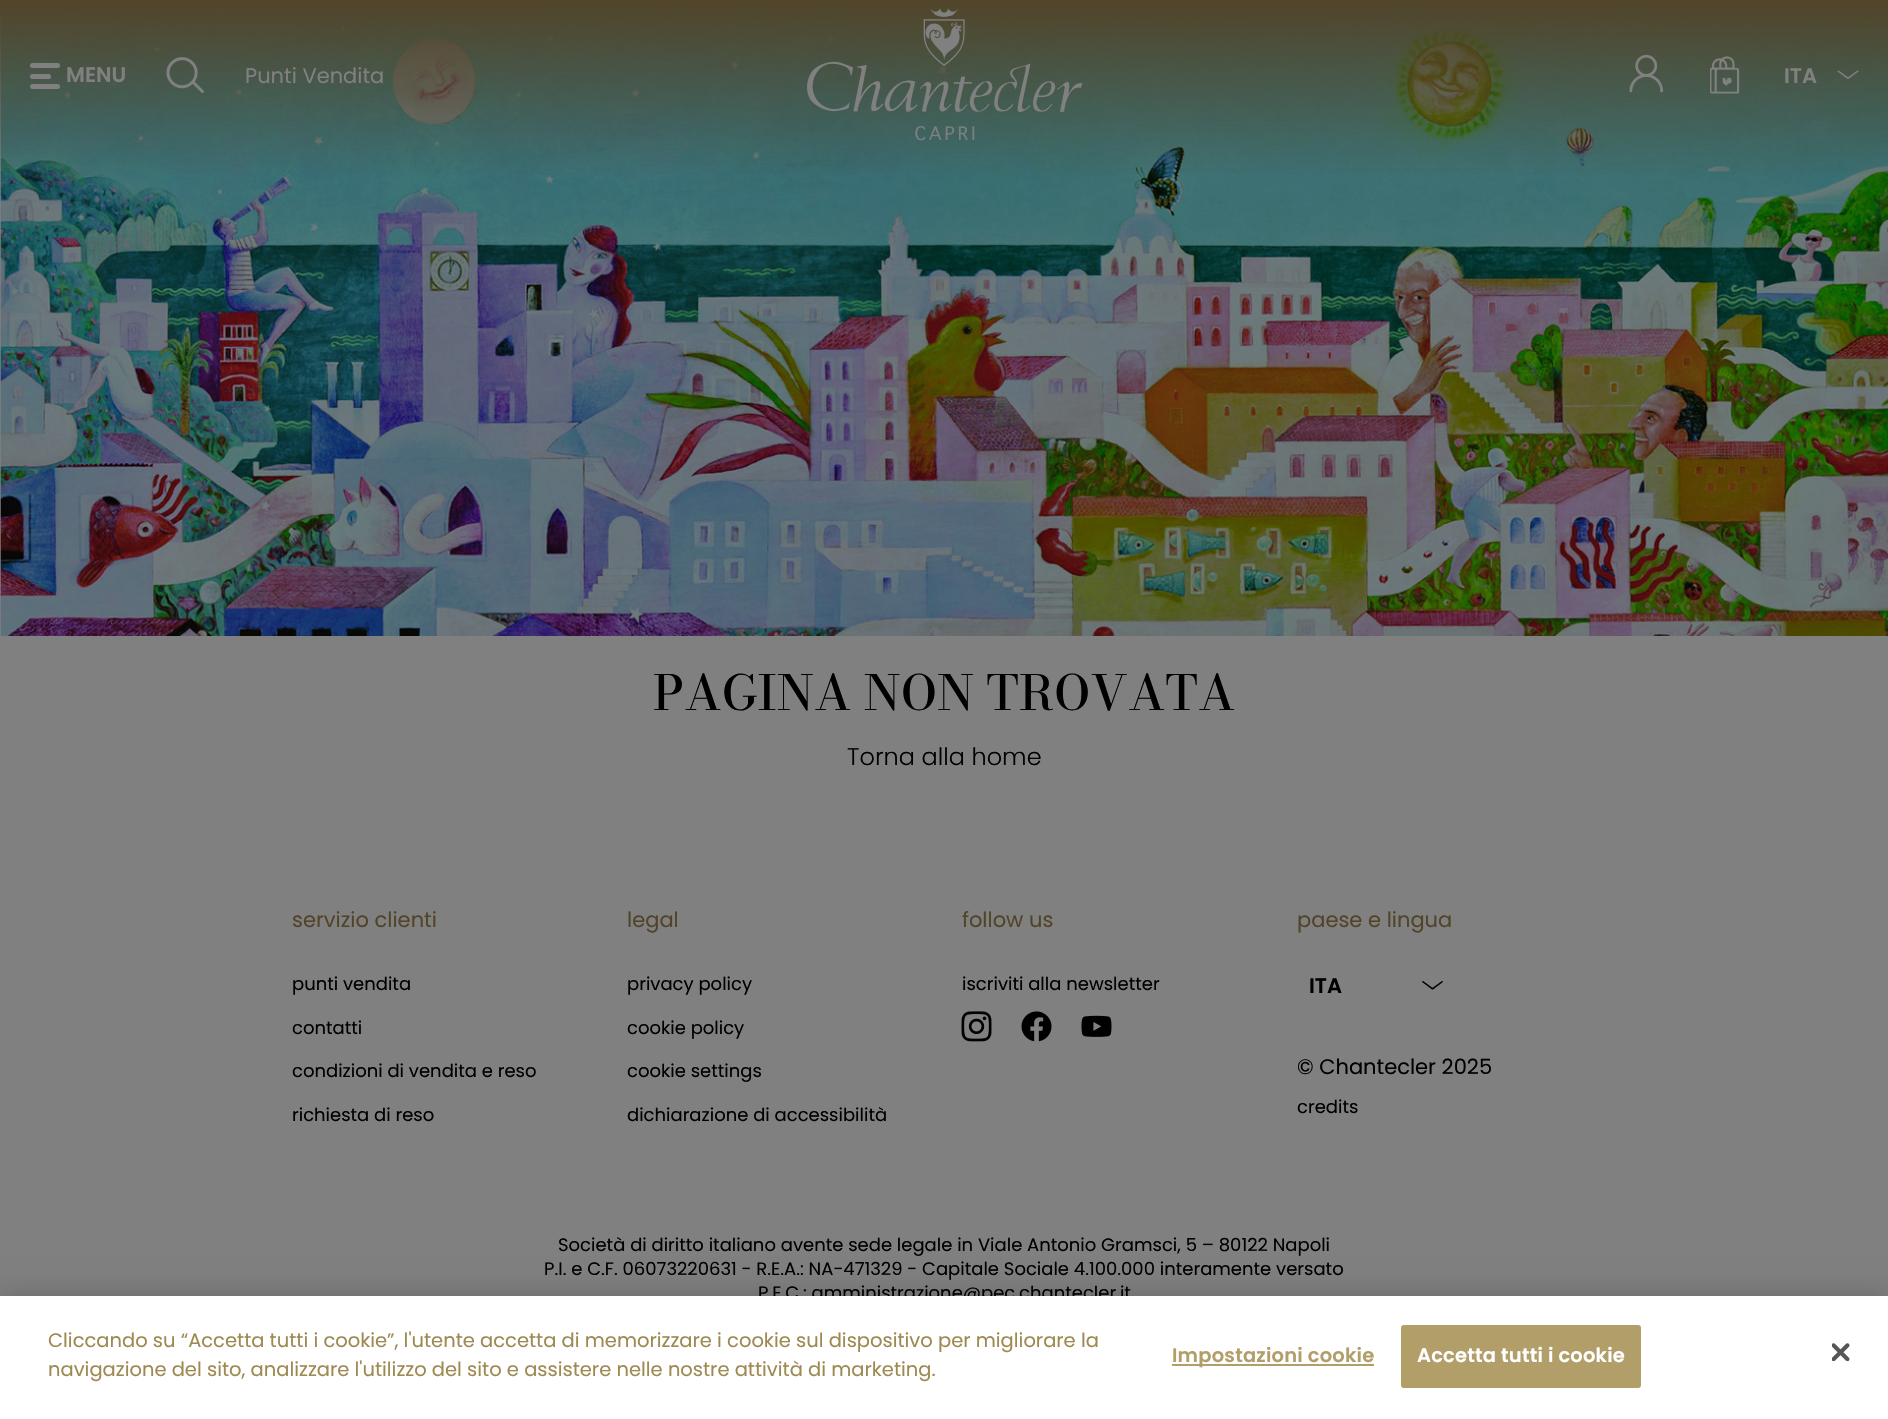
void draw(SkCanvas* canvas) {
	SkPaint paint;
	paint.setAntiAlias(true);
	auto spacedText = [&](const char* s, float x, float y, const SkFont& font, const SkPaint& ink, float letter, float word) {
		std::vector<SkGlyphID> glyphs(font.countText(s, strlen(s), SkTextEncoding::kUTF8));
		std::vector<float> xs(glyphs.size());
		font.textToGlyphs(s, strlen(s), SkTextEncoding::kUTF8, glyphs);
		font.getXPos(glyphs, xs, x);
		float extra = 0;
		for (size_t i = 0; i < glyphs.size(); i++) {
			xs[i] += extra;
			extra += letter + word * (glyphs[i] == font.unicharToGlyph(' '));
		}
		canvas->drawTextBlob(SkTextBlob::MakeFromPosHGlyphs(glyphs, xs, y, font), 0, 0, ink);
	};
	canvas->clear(0xff808080);
	canvas->drawImageRect(SkImages::DeferredFromEncodedData(SkData::MakeFromFileName("img6.png")), SkRect::MakeXYWH(0, 1, 1888, 635), SkSamplingOptions());
	{
		const SkColor colors[] = {0x00514428, 0xff514428};
		const float stops[] = {0, 1};
		const SkPoint ends[] = {{944, 180}, {944, 0}};
		paint.setShader(SkGradientShader::MakeLinear(ends, colors, stops, 2, SkTileMode::kClamp));
		paint.setAlpha(255);
	}
	canvas->drawRect(SkRect::MakeXYWH(0, 0, 1888, 175), paint);
	paint.setShader(nullptr);
	paint.setColor(0xff808080);
	canvas->drawRoundRect(SkRect::MakeXYWH(30, 74, 21, 5), 2.5, 2.5, paint);
	canvas->drawRoundRect(SkRect::MakeXYWH(30, 63, 30, 5), 2.5, 2.5, paint);
	canvas->drawRoundRect(SkRect::MakeXYWH(30, 84, 30, 5), 2.5, 2.5, paint);
	SkFont f1(fontMgr->matchFamilyStyle("Poppins", SkFontStyle(600, SkFontStyle::kNormal_Width, SkFontStyle::kUpright_Slant)), 21);
	f1.setSubpixel(true);
	canvas->drawString("MENU", 66, 82, f1, paint);
	canvas->drawImageRect(SkImages::DeferredFromEncodedData(SkData::MakeFromFileName("img1.png")), SkRect::MakeXYWH(166, 57, 38, 36), SkSamplingOptions());
	SkFont f2(fontMgr->matchFamilyStyle("Poppins", SkFontStyle::Normal()), 21);
	f2.setSubpixel(true);
	canvas->drawString("Punti Vendita", 245, 83, f2, paint);
	canvas->drawImageRect(SkImages::DeferredFromEncodedData(SkData::MakeFromFileName("img2.png")), SkRect::MakeXYWH(807, 8, 276, 133), SkSamplingOptions());
	canvas->drawImageRect(SkImages::DeferredFromEncodedData(SkData::MakeFromFileName("img3.png")), SkRect::MakeXYWH(1629, 54, 35, 39), SkSamplingOptions());
	canvas->drawImageRect(SkImages::DeferredFromEncodedData(SkData::MakeFromFileName("img4.png")), SkRect::MakeXYWH(1710, 56, 30, 38), SkSamplingOptions());
	canvas->drawString("ITA", 1784, 83, f1, paint);
	canvas->drawImageRect(SkImages::DeferredFromEncodedData(SkData::MakeFromFileName("img5.png")), SkRect::MakeXYWH(1837, 70, 22, 9), SkSamplingOptions());
	SkFont f3(fontMgr->matchFamilyStyle("Bodoni Moda", SkFontStyle(500, SkFontStyle::kNormal_Width, SkFontStyle::kUpright_Slant)), 48);
	f3.setSubpixel(true);
	paint.setColor(0xff000000);
	canvas->drawString("PAGINA NON TROVATA", 653, 710, f3, paint);
	SkFont f4(fontMgr->matchFamilyStyle("Poppins", SkFontStyle(300, SkFontStyle::kNormal_Width, SkFontStyle::kUpright_Slant)), 24);
	f4.setSubpixel(true);
	canvas->drawString("Torna alla home", 847, 765, f4, paint);
	paint.setColor(0xff514428);
	canvas->drawString("servizio clienti", 292, 927, f2, paint);
	SkFont f5(fontMgr->matchFamilyStyle("Poppins", SkFontStyle::Normal()), 18);
	f5.setSubpixel(true);
	paint.setColor(0xff000000);
	canvas->drawString("punti vendita", 292, 990, f5, paint);
	canvas->drawString("contatti", 292, 1034, f5, paint);
	canvas->drawString("condizioni di vendita e reso", 292, 1077, f5, paint);
	canvas->drawString("richiesta di reso", 292, 1121, f5, paint);
	paint.setColor(0xff514428);
	canvas->drawString("legal", 627, 927, f2, paint);
	paint.setColor(0xff000000);
	canvas->drawString("privacy policy", 627, 990, f5, paint);
	canvas->drawString("cookie policy", 627, 1034, f5, paint);
	canvas->drawString("cookie settings", 627, 1077, f5, paint);
	canvas->drawString("dichiarazione di accessibilità", 627, 1121, f5, paint);
	paint.setColor(0xff514428);
	canvas->drawString("follow us", 962, 927, f2, paint);
	paint.setColor(0xff000000);
	canvas->drawString("iscriviti alla newsletter", 962, 990, f5, paint);
	canvas->drawImageRect(SkImages::DeferredFromEncodedData(SkData::MakeFromFileName("img7.png")), SkRect::MakeXYWH(961, 1011, 31, 31), SkSamplingOptions());
	canvas->drawImageRect(SkImages::DeferredFromEncodedData(SkData::MakeFromFileName("img8.png")), SkRect::MakeXYWH(1021, 1011, 31, 31), SkSamplingOptions());
	canvas->drawImageRect(SkImages::DeferredFromEncodedData(SkData::MakeFromFileName("img9.png")), SkRect::MakeXYWH(1081, 1015, 31, 22), SkSamplingOptions());
	paint.setColor(0xff514428);
	canvas->drawString("paese e lingua", 1297, 927, f2, paint);
	paint.setColor(0xff000000);
	canvas->drawString("ITA", 1309, 993, f1, paint);
	canvas->drawImageRect(SkImages::DeferredFromEncodedData(SkData::MakeFromFileName("img10.png")), SkRect::MakeXYWH(1422, 981, 21, 9), SkSamplingOptions());
	canvas->drawString("© Chantecler 2025", 1297, 1074, f2, paint);
	canvas->drawString("credits", 1297, 1113, f5, paint);
	canvas->drawString("Società di diritto italiano avente sede legale in Viale Antonio Gramsci, 5 – 80122 Napoli", 558, 1251, f5, paint);
	canvas->drawString("P.I. e C.F. 06073220631 - R.E.A.: NA-471329 - Capitale Sociale 4.100.000 interamente versato", 544, 1275, f5, paint);
	canvas->drawString("P.E.C.: amministrazione@pec.chantecler.it", 758, 1299, f5, paint);
	paint.setColor(0x33000000);
	paint.setMaskFilter(SkMaskFilter::MakeBlur(kNormal_SkBlurStyle, 13.5));
	canvas->drawRect(SkRect::MakeXYWH(0, 1296, 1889, 123), paint);
	paint.setMaskFilter(nullptr);
	paint.setColor(0xffffffff);
	canvas->drawRect(SkRect::MakeXYWH(0, 1296, 1888, 123), paint);
	SkFont f6(fontMgr->matchFamilyStyle("Poppins", SkFontStyle::Normal()), 19.5);
	f6.setSubpixel(true);
	paint.setColor(0xff9d8951);
	canvas->drawString("Cliccando su “Accetta tutti i cookie”, l'utente accetta di memorizzare i cookie sul dispositivo per migliorare la", 48, 1347, f6, paint);
	canvas->drawString("navigazione del sito, analizzare l'utilizzo del sito e assistere nelle nostre attività di marketing.", 48, 1376, f6, paint);
	paint.setColor(0xffb19e69);
	canvas->drawRect(SkRect::MakeXYWH(1172, 1364, 202, 2), paint);
	SkFont f7(fontMgr->matchFamilyStyle("Poppins", SkFontStyle(600, SkFontStyle::kNormal_Width, SkFontStyle::kUpright_Slant)), 19.5);
	f7.setSubpixel(true);
	spacedText("Impostazioni cookie", 1172, 1362, f7, paint, 0.2, 0);
	canvas->drawRoundRect(SkRect::MakeXYWH(1402, 1326, 238, 61), 2, 2, paint);
	paint.setStroke(true);
	paint.setStrokeWidth(2);
	canvas->drawRoundRect(SkRect::MakeXYWH(1402, 1326, 238, 61), 2, 2, paint);
	paint.setStroke(false);
	paint.setColor(0xffffffff);
	spacedText("Accetta tutti i cookie", 1417, 1362, f7, paint, 0.2, 0);
	canvas->drawImageRect(SkImages::DeferredFromEncodedData(SkData::MakeFromFileName("img11.png")), SkRect::MakeXYWH(1832, 1343, 18, 18), SkSamplingOptions());
}
